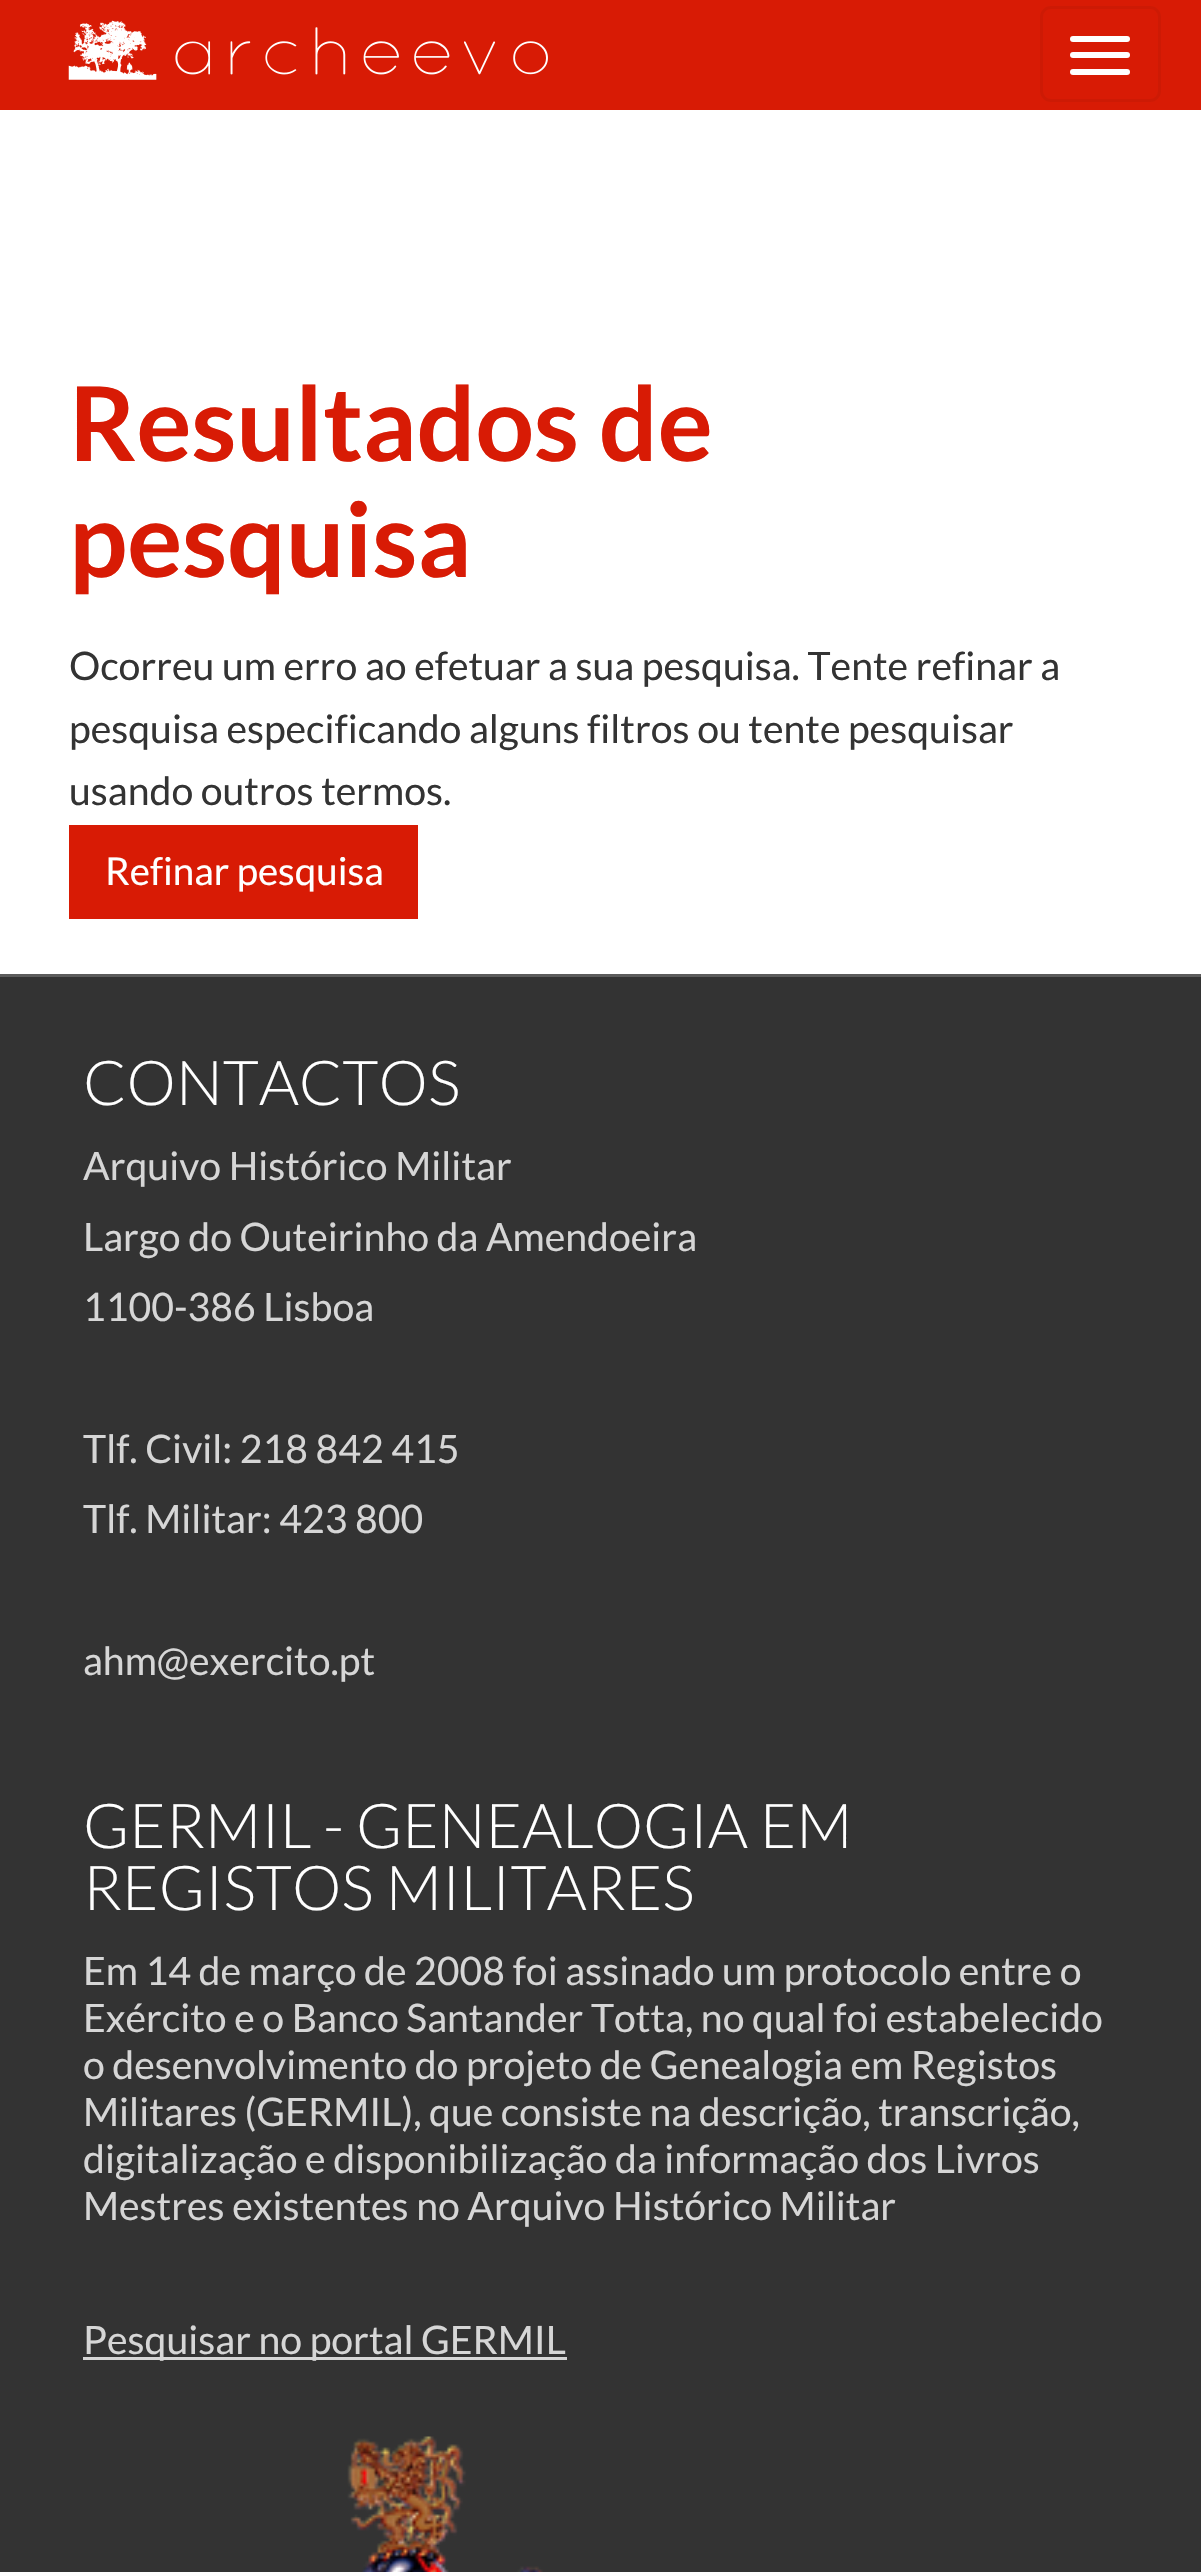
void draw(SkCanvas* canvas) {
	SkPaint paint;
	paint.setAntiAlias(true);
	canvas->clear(0xffffffff);
	paint.setColor(0xffd81b05);
	canvas->drawRect(SkRect::MakeXYWH(0, 0, 1201, 110), paint);
	canvas->drawImageRect(SkImages::DeferredFromEncodedData(SkData::MakeFromFileName("img1.png")), SkRect::MakeXYWH(68, 20, 480, 60), SkSamplingOptions());
	paint.setStroke(true);
	paint.setStrokeWidth(3);
	paint.setColor(0xffcd1a05);
	canvas->drawRoundRect(SkRect::MakeXYWH(1041.5, 7.5, 118, 93), 9.5, 9.5, paint);
	paint.setStroke(false);
	paint.setColor(0xffffffff);
	canvas->drawRoundRect(SkRect::MakeXYWH(1070, 36, 60, 6), 3, 3, paint);
	canvas->drawRoundRect(SkRect::MakeXYWH(1070, 52, 60, 6), 3, 3, paint);
	canvas->drawRoundRect(SkRect::MakeXYWH(1070, 69, 60, 6), 3, 3, paint);
	SkFont f1(fontMgr->matchFamilyStyle("Lato", SkFontStyle::Bold()), 103);
	f1.setSubpixel(true);
	paint.setColor(0xffd81b05);
	canvas->drawString("Resultados de", 69, 461, f1, paint);
	canvas->drawString("pesquisa", 69, 577, f1, paint);
	SkFont f2(fontMgr->matchFamilyStyle("Lato", SkFontStyle::Normal()), 39.2);
	f2.setSubpixel(true);
	paint.setColor(0xff333333);
	canvas->drawString("Ocorreu um erro ao efetuar a sua pesquisa. Tente refinar a", 69, 680, f2, paint);
	canvas->drawString("pesquisa especificando alguns filtros ou tente pesquisar", 69, 743, f2, paint);
	canvas->drawString("usando outros termos.", 69, 805, f2, paint);
	paint.setColor(0xffd81b05);
	canvas->drawRect(SkRect::MakeXYWH(69, 825, 349, 94), paint);
	SkFont f3(fontMgr->matchFamilyStyle("Lato", SkFontStyle::Normal()), 38.5);
	f3.setSubpixel(true);
	paint.setColor(0xffffffff);
	canvas->drawString("Refinar pesquisa", 105, 885, f3, paint);
	paint.setColor(0xff333333);
	canvas->drawRect(SkRect::MakeXYWH(0, 977, 1201, 1595), paint);
	paint.setColor(0xff5c5c5c);
	canvas->drawRect(SkRect::MakeXYWH(0, 974, 1201, 3), paint);
	SkFont f4(fontMgr->matchFamilyStyle("Lato", SkFontStyle(300, SkFontStyle::kNormal_Width, SkFontStyle::kUpright_Slant)), 61.9);
	f4.setSubpixel(true);
	paint.setColor(0xffffffff);
	canvas->drawString("CONTACTOS", 83, 1105, f4, paint);
	paint.setColor(0xffd6d6d6);
	canvas->drawString("Arquivo Histórico Militar", 83, 1180, f2, paint);
	canvas->drawString("Largo do Outeirinho da Amendoeira", 83, 1251, f2, paint);
	canvas->drawString("1100-386 Lisboa", 83, 1321, f2, paint);
	canvas->drawString("Tlf. Civil: 218 842 415", 83, 1463, f2, paint);
	canvas->drawString("Tlf. Militar: 423 800", 83, 1533, f2, paint);
	canvas->drawString("ahm@exercito.pt", 83, 1675, f2, paint);
	paint.setColor(0xffffffff);
	canvas->drawString("GERMIL - GENEALOGIA EM", 83, 1848, f4, paint);
	canvas->drawString("REGISTOS MILITARES", 83, 1910, f4, paint);
	paint.setColor(0xffd6d6d6);
	canvas->drawString("Em 14 de março de 2008 foi assinado um protocolo entre o", 83, 1985, f2, paint);
	canvas->drawString("Exército e o Banco Santander Totta, no qual foi estabelecido", 83, 2032, f2, paint);
	canvas->drawString("o desenvolvimento do projeto de Genealogia em Registos", 83, 2079, f2, paint);
	canvas->drawString("Militares (GERMIL), que consiste na descrição, transcrição,", 83, 2126, f2, paint);
	canvas->drawString("digitalização e disponibilização da informação dos Livros", 83, 2173, f2, paint);
	canvas->drawString("Mestres existentes no Arquivo Histórico Militar", 83, 2220, f2, paint);
	canvas->drawRect(SkRect::MakeXYWH(83, 2357, 484, 3), paint);
	canvas->drawString("Pesquisar no portal GERMIL", 83, 2354, f2, paint);
	canvas->drawImageRect(SkImages::DeferredFromEncodedData(SkData::MakeFromFileName("img2.png")), SkRect::MakeXYWH(347, 2436, 196, 136), SkSamplingOptions());
}
